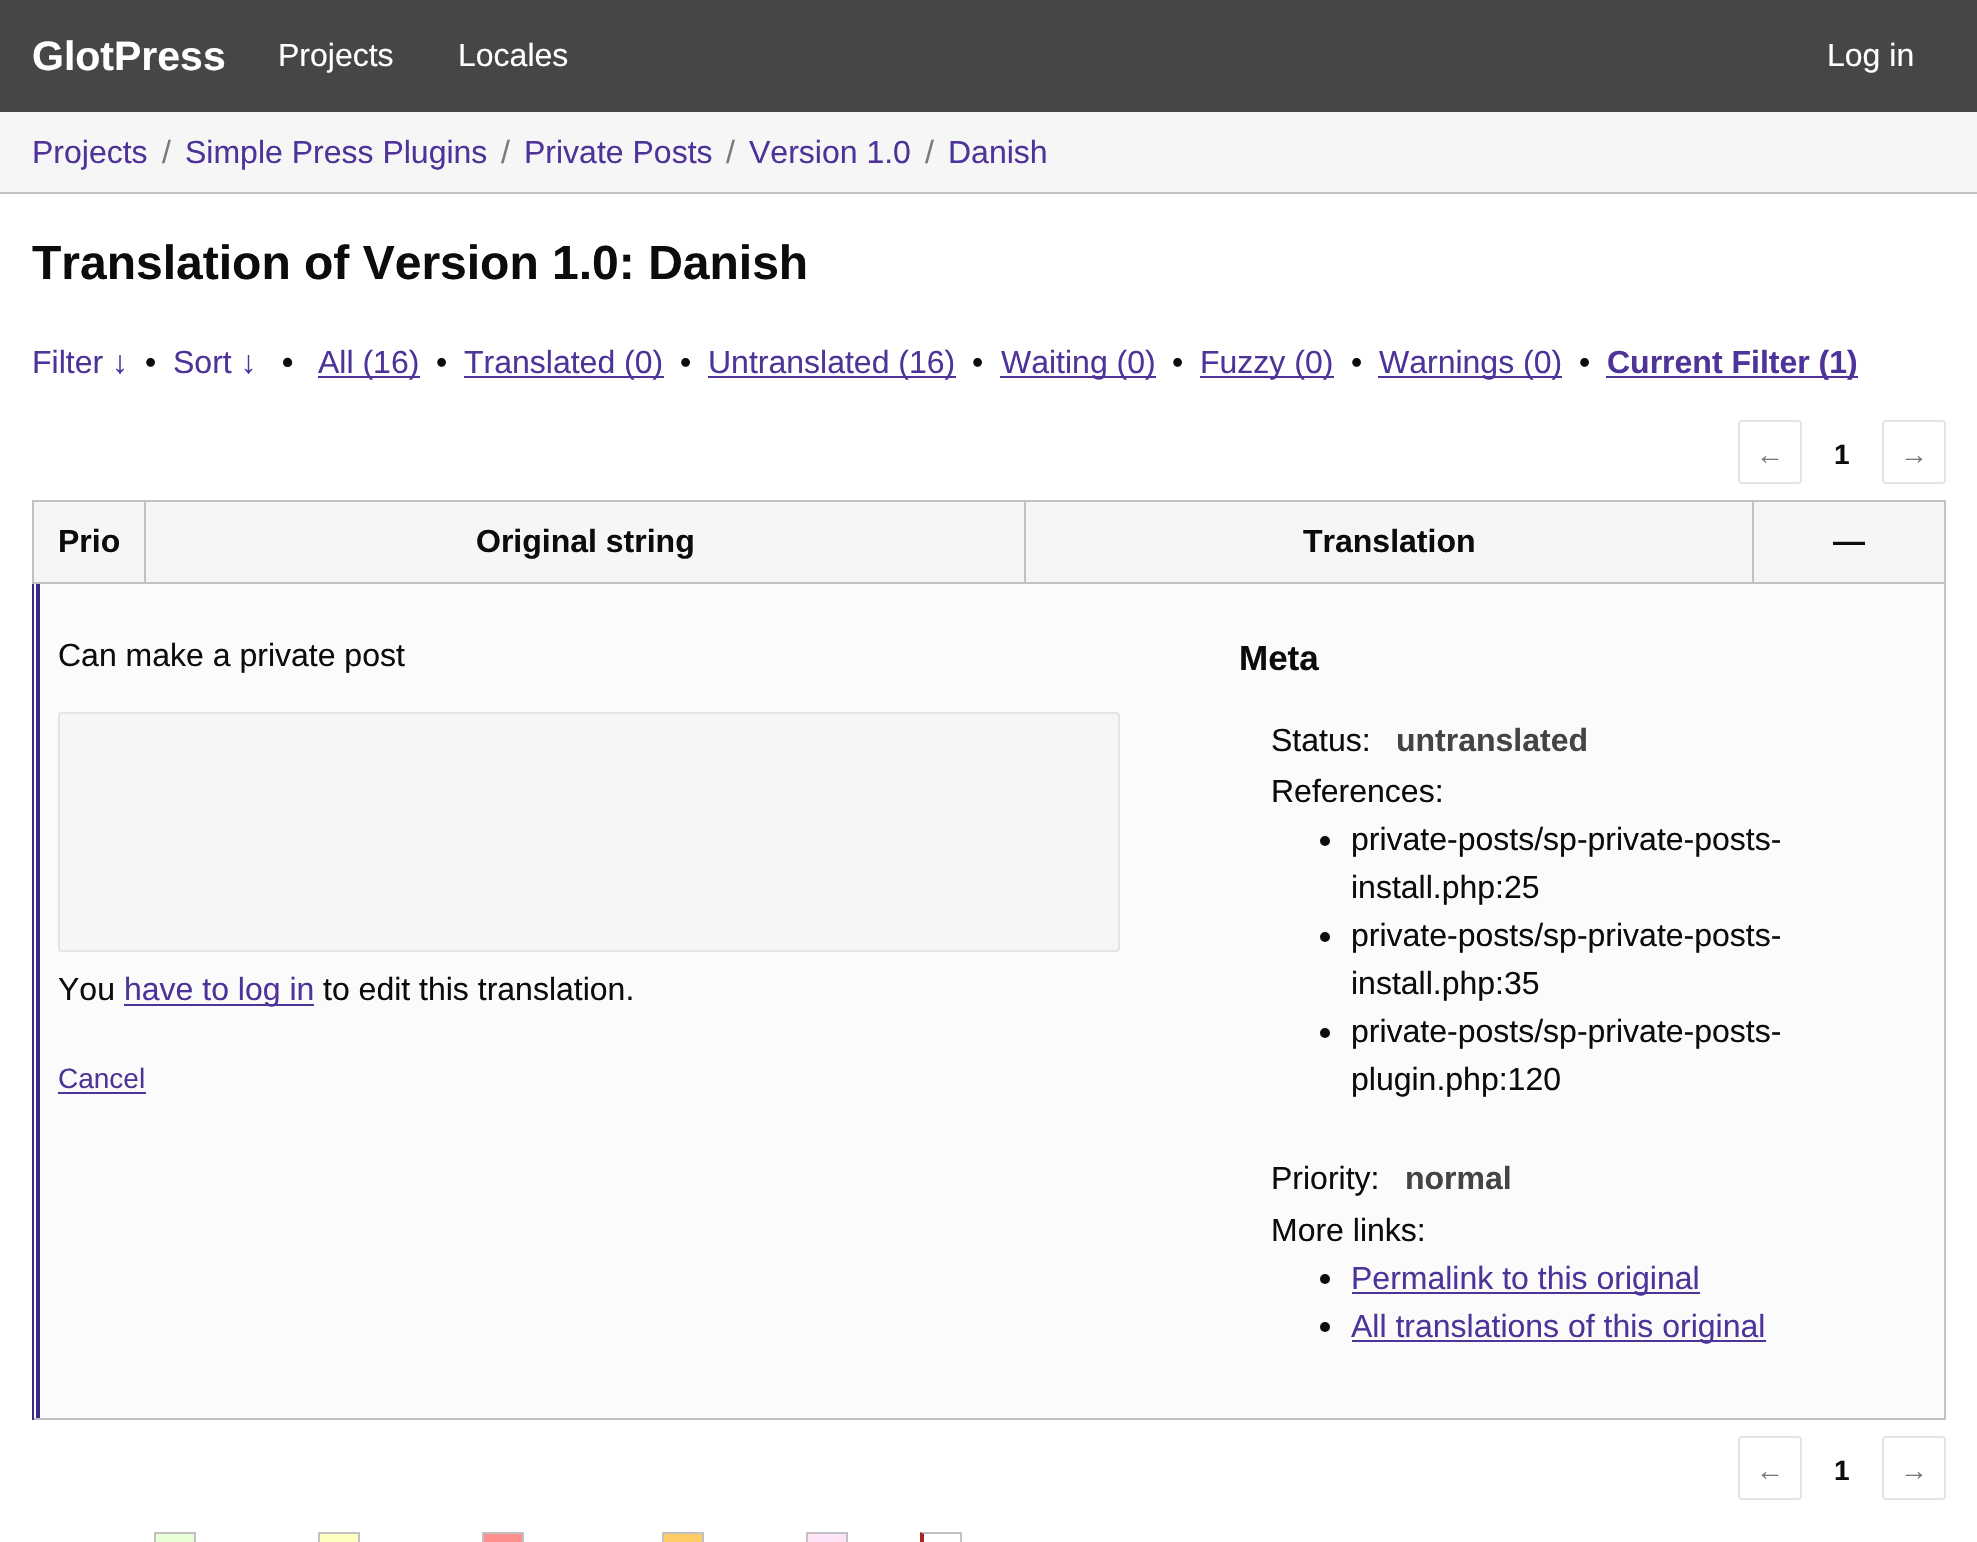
void draw(SkCanvas* canvas) {
	SkPaint paint;
	paint.setAntiAlias(true);
	auto svgPath = [&](const char* data, bool evenOdd = false) {
		SkPath result = *SkParsePath::FromSVGString(data);
		if (evenOdd) result.setFillType(SkPathFillType::kEvenOdd);
		return result;
	};
	canvas->clear(0xffffffff);
	paint.setColor(0xff464646);
	canvas->drawRect(SkRect::MakeXYWH(0, 0, 1977, 112), paint);
	SkFont f1(fontMgr->matchFamilyStyle("Liberation Sans", SkFontStyle::Bold()), 41);
	f1.setSubpixel(true);
	paint.setColor(0xffffffff);
	canvas->drawString("GlotPress", 32, 70, f1, paint);
	SkFont f2(fontMgr->matchFamilyStyle("Liberation Sans", SkFontStyle::Normal()), 32);
	f2.setSubpixel(true);
	canvas->drawString("Projects", 278, 66, f2, paint);
	canvas->drawString("Locales", 458, 66, f2, paint);
	canvas->drawString("Log in", 1827, 66, f2, paint);
	paint.setColor(0xfff6f6f6);
	canvas->drawRect(SkRect::MakeXYWH(0, 112, 1977, 80), paint);
	paint.setColor(0xffc1c1c1);
	canvas->drawRect(SkRect::MakeXYWH(0, 192, 1977, 2), paint);
	paint.setColor(0xff4e3499);
	canvas->drawString("Projects", 32, 163, f2, paint);
	paint.setColor(0xff7a7a7a);
	canvas->drawString("/", 162, 163, f2, paint);
	paint.setColor(0xff4e3499);
	canvas->drawString("Simple Press Plugins", 185, 163, f2, paint);
	paint.setColor(0xff7a7a7a);
	canvas->drawString("/", 501, 163, f2, paint);
	paint.setColor(0xff4e3499);
	canvas->drawString("Private Posts", 524, 163, f2, paint);
	paint.setColor(0xff7a7a7a);
	canvas->drawString("/", 726, 163, f2, paint);
	paint.setColor(0xff4e3499);
	canvas->drawString("Version 1.0", 749, 163, f2, paint);
	paint.setColor(0xff7a7a7a);
	canvas->drawString("/", 925, 163, f2, paint);
	paint.setColor(0xff4e3499);
	canvas->drawString("Danish", 948, 163, f2, paint);
	SkFont f3(fontMgr->matchFamilyStyle("Liberation Sans", SkFontStyle::Bold()), 48);
	f3.setSubpixel(true);
	paint.setColor(0xff0b0c0c);
	canvas->drawString("Translation of Version 1.0: Danish", 32, 279, f3, paint);
	paint.setColor(0xff4e3499);
	canvas->drawString("Filter ↓", 32, 373, f2, paint);
	paint.setColor(0xff0b0c0c);
	canvas->drawString("•", 145, 373, f2, paint);
	paint.setColor(0xff4e3499);
	canvas->drawString("Sort ↓", 173, 373, f2, paint);
	SkFont f4(fontMgr->matchFamilyStyle("Liberation Sans", SkFontStyle::Bold()), 32);
	f4.setSubpixel(true);
	paint.setColor(0xff0b0c0c);
	canvas->drawString("•", 282, 373, f4, paint);
	paint.setColor(0xff4e3499);
	canvas->drawRect(SkRect::MakeXYWH(318, 376, 102, 2), paint);
	canvas->drawString("All (16)", 318, 373, f2, paint);
	paint.setColor(0xff0b0c0c);
	canvas->drawString("•", 436, 373, f2, paint);
	paint.setColor(0xff4e3499);
	canvas->drawRect(SkRect::MakeXYWH(464, 376, 200, 2), paint);
	canvas->drawString("Translated (0)", 464, 373, f2, paint);
	paint.setColor(0xff0b0c0c);
	canvas->drawString("•", 680, 373, f2, paint);
	paint.setColor(0xff4e3499);
	canvas->drawRect(SkRect::MakeXYWH(708, 376, 248, 2), paint);
	canvas->drawString("Untranslated (16)", 708, 373, f2, paint);
	paint.setColor(0xff0b0c0c);
	canvas->drawString("•", 972, 373, f2, paint);
	paint.setColor(0xff4e3499);
	canvas->drawRect(SkRect::MakeXYWH(1000, 376, 156, 2), paint);
	canvas->drawString("Waiting (0)", 1001, 373, f2, paint);
	paint.setColor(0xff0b0c0c);
	canvas->drawString("•", 1172, 373, f2, paint);
	paint.setColor(0xff4e3499);
	canvas->drawRect(SkRect::MakeXYWH(1200, 376, 134, 2), paint);
	canvas->drawString("Fuzzy (0)", 1200, 373, f2, paint);
	paint.setColor(0xff0b0c0c);
	canvas->drawString("•", 1351, 373, f2, paint);
	paint.setColor(0xff4e3499);
	canvas->drawRect(SkRect::MakeXYWH(1378, 376, 184, 2), paint);
	canvas->drawString("Warnings (0)", 1379, 373, f2, paint);
	paint.setColor(0xff0b0c0c);
	canvas->drawString("•", 1579, 373, f2, paint);
	paint.setColor(0xff4e3499);
	canvas->drawRect(SkRect::MakeXYWH(1606, 376, 252, 2), paint);
	canvas->drawString("Current Filter (1)", 1607, 373, f4, paint);
	paint.setStroke(true);
	paint.setStrokeWidth(2);
	paint.setColor(0xffe4e4e4);
	canvas->drawRoundRect(SkRect::MakeXYWH(1739, 421, 62, 62), 3, 3, paint);
	SkFont f5(fontMgr->matchFamilyStyle("Liberation Sans", SkFontStyle::Normal()), 28);
	f5.setSubpixel(true);
	paint.setStroke(false);
	paint.setColor(0xff7a7a7a);
	canvas->drawString("←", 1756, 464, f5, paint);
	SkFont f6(fontMgr->matchFamilyStyle("Liberation Sans", SkFontStyle::Bold()), 28);
	f6.setSubpixel(true);
	paint.setColor(0xff0b0c0c);
	canvas->drawString("1", 1834, 464, f6, paint);
	paint.setStroke(true);
	paint.setColor(0xffe4e4e4);
	canvas->drawRoundRect(SkRect::MakeXYWH(1883, 421, 62, 62), 3, 3, paint);
	paint.setStroke(false);
	paint.setColor(0xff7a7a7a);
	canvas->drawString("→", 1900, 464, f5, paint);
	paint.setColor(0xffc1c1c1);
	canvas->drawRect(SkRect::MakeXYWH(32, 500, 1914, 2), paint);
	canvas->drawRect(SkRect::MakeXYWH(1944, 500, 2, 920), paint);
	canvas->drawRect(SkRect::MakeXYWH(32, 1418, 1914, 2), paint);
	canvas->drawRect(SkRect::MakeXYWH(32, 500, 2, 82), paint);
	paint.setColor(0xfff6f6f6);
	canvas->drawRect(SkRect::MakeXYWH(34, 502, 110, 80), paint);
	paint.setColor(0xffc1c1c1);
	canvas->drawRect(SkRect::MakeXYWH(1752, 582, 194, 2), paint);
	canvas->drawRect(SkRect::MakeXYWH(1752, 500, 2, 84), paint);
	canvas->drawRect(SkRect::MakeXYWH(1024, 582, 730, 2), paint);
	canvas->drawRect(SkRect::MakeXYWH(1024, 500, 2, 84), paint);
	canvas->drawRect(SkRect::MakeXYWH(144, 582, 882, 2), paint);
	canvas->drawRect(SkRect::MakeXYWH(144, 500, 2, 84), paint);
	paint.setColor(0xff39298b);
	canvas->drawRect(SkRect::MakeXYWH(32, 582, 2, 838), paint);
	paint.setColor(0xffc1c1c1);
	canvas->drawRect(SkRect::MakeXYWH(32, 582, 114, 2), paint);
	paint.setColor(0xff0b0c0c);
	canvas->drawString("Prio", 58, 552, f4, paint);
	paint.setColor(0xfff6f6f6);
	canvas->drawRect(SkRect::MakeXYWH(146, 502, 878, 80), paint);
	paint.setColor(0xff0b0c0c);
	canvas->drawString("Original string", 476, 552, f4, paint);
	paint.setColor(0xfff6f6f6);
	canvas->drawRect(SkRect::MakeXYWH(1026, 502, 726, 80), paint);
	paint.setColor(0xff0b0c0c);
	canvas->drawString("Translation", 1303, 552, f4, paint);
	paint.setColor(0xfff6f6f6);
	canvas->drawRect(SkRect::MakeXYWH(1754, 502, 190, 80), paint);
	paint.setColor(0xff0b0c0c);
	canvas->drawString("—", 1833, 552, f4, paint);
	paint.setColor(0xfffbfbfb);
	canvas->drawRect(SkRect::MakeXYWH(34, 584, 1910, 834), paint);
	paint.setColor(0xff39298b);
	canvas->drawRect(SkRect::MakeXYWH(36, 584, 4, 834), paint);
	paint.setColor(0xff0b0c0c);
	canvas->drawString("Can make a private post", 58, 666, f2, paint);
	paint.setColor(0xfff6f6f6);
	canvas->drawRoundRect(SkRect::MakeXYWH(59, 713, 1060, 238), 3, 3, paint);
	paint.setStroke(true);
	paint.setColor(0xffe4e4e4);
	canvas->drawRoundRect(SkRect::MakeXYWH(59, 713, 1060, 238), 3, 3, paint);
	paint.setStroke(false);
	paint.setColor(0xff0b0c0c);
	canvas->drawString("You", 58, 1000, f2, paint);
	paint.setColor(0xff4e3499);
	canvas->drawRect(SkRect::MakeXYWH(124, 1004, 190, 2), paint);
	canvas->drawString("have to log in", 124, 1000, f2, paint);
	paint.setColor(0xff0b0c0c);
	canvas->drawString("to edit this translation.", 323, 1000, f2, paint);
	paint.setColor(0xff4e3499);
	canvas->drawString("Cancel", 58, 1088, f5, paint);
	canvas->drawRect(SkRect::MakeXYWH(58, 1092, 88, 2), paint);
	SkFont f7(fontMgr->matchFamilyStyle("Liberation Sans", SkFontStyle::Bold()), 35);
	f7.setSubpixel(true);
	paint.setColor(0xff0b0c0c);
	canvas->drawString("Meta", 1239, 670, f7, paint);
	canvas->drawString("Status:", 1271, 751, f2, paint);
	paint.setColor(0xff444444);
	canvas->drawString("untranslated", 1396, 751, f4, paint);
	paint.setColor(0xff0b0c0c);
	canvas->drawString("References:", 1271, 802, f2, paint);
	canvas->drawCircle(1325, 841, 5, paint);
	canvas->drawString("private-posts/sp-private-posts-", 1351, 850, f2, paint);
	canvas->drawString("install.php:25", 1351, 898, f2, paint);
	canvas->drawCircle(1325, 937, 5, paint);
	canvas->drawString("private-posts/sp-private-posts-", 1351, 946, f2, paint);
	canvas->drawString("install.php:35", 1351, 994, f2, paint);
	canvas->drawCircle(1325, 1033, 5, paint);
	canvas->drawString("private-posts/sp-private-posts-", 1351, 1042, f2, paint);
	canvas->drawString("plugin.php:120", 1351, 1090, f2, paint);
	canvas->drawString("Priority:", 1271, 1189, f2, paint);
	paint.setColor(0xff444444);
	canvas->drawString("normal", 1405, 1189, f4, paint);
	paint.setColor(0xff0b0c0c);
	canvas->drawString("More links:", 1271, 1241, f2, paint);
	canvas->drawCircle(1325, 1279, 5, paint);
	paint.setColor(0xff4e3499);
	canvas->drawRect(SkRect::MakeXYWH(1352, 1292, 348, 2), paint);
	canvas->drawString("Permalink to this original", 1351, 1289, f2, paint);
	paint.setColor(0xff0b0c0c);
	canvas->drawCircle(1325, 1327, 5, paint);
	paint.setColor(0xff4e3499);
	canvas->drawRect(SkRect::MakeXYWH(1352, 1340, 414, 2), paint);
	canvas->drawString("All translations of this original", 1351, 1337, f2, paint);
	paint.setStroke(true);
	paint.setColor(0xffe4e4e4);
	canvas->drawRoundRect(SkRect::MakeXYWH(1739, 1437, 62, 62), 3, 3, paint);
	paint.setStroke(false);
	paint.setColor(0xff7a7a7a);
	canvas->drawString("←", 1756, 1480, f5, paint);
	paint.setColor(0xff0b0c0c);
	canvas->drawString("1", 1834, 1480, f6, paint);
	paint.setStroke(true);
	paint.setColor(0xffe4e4e4);
	canvas->drawRoundRect(SkRect::MakeXYWH(1883, 1437, 62, 62), 3, 3, paint);
	paint.setStroke(false);
	paint.setColor(0xff7a7a7a);
	canvas->drawString("→", 1900, 1480, f5, paint);
	paint.setColor(0xffe9ffd8);
	canvas->drawRect(SkRect::MakeXYWH(155, 1533, 40, 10), paint);
	paint.setStroke(true);
	paint.setColor(0xffc1c1c1);
	canvas->drawRect(SkRect::MakeXYWH(155, 1533, 40, 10), paint);
	paint.setStroke(false);
	paint.setColor(0xffffffc2);
	canvas->drawRect(SkRect::MakeXYWH(319, 1533, 40, 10), paint);
	paint.setStroke(true);
	paint.setColor(0xffc1c1c1);
	canvas->drawRect(SkRect::MakeXYWH(319, 1533, 40, 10), paint);
	paint.setStroke(false);
	paint.setColor(0xffff8e8e);
	canvas->drawRect(SkRect::MakeXYWH(483, 1533, 40, 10), paint);
	paint.setStroke(true);
	paint.setColor(0xffc1c1c1);
	canvas->drawRect(SkRect::MakeXYWH(483, 1533, 40, 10), paint);
	paint.setStroke(false);
	paint.setColor(0xffffcc66);
	canvas->drawRect(SkRect::MakeXYWH(663, 1533, 40, 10), paint);
	paint.setStroke(true);
	paint.setColor(0xffc1c1c1);
	canvas->drawRect(SkRect::MakeXYWH(663, 1533, 40, 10), paint);
	paint.setStroke(false);
	paint.setColor(0xfffee4f8);
	canvas->drawRect(SkRect::MakeXYWH(807, 1533, 40, 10), paint);
	paint.setStroke(true);
	paint.setColor(0xffc1c1c1);
	canvas->drawRect(SkRect::MakeXYWH(807, 1533, 40, 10), paint);
	paint.setStroke(false);
	canvas->drawPath(svgPath("M920 1532H962L960 1534H924Z"), paint);
	canvas->drawRect(SkRect::MakeXYWH(960, 1532, 2, 10), paint);
	paint.setColor(0xffa62626);
	canvas->drawPath(svgPath("M920 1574V1532L924 1534V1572Z"), paint);
}
